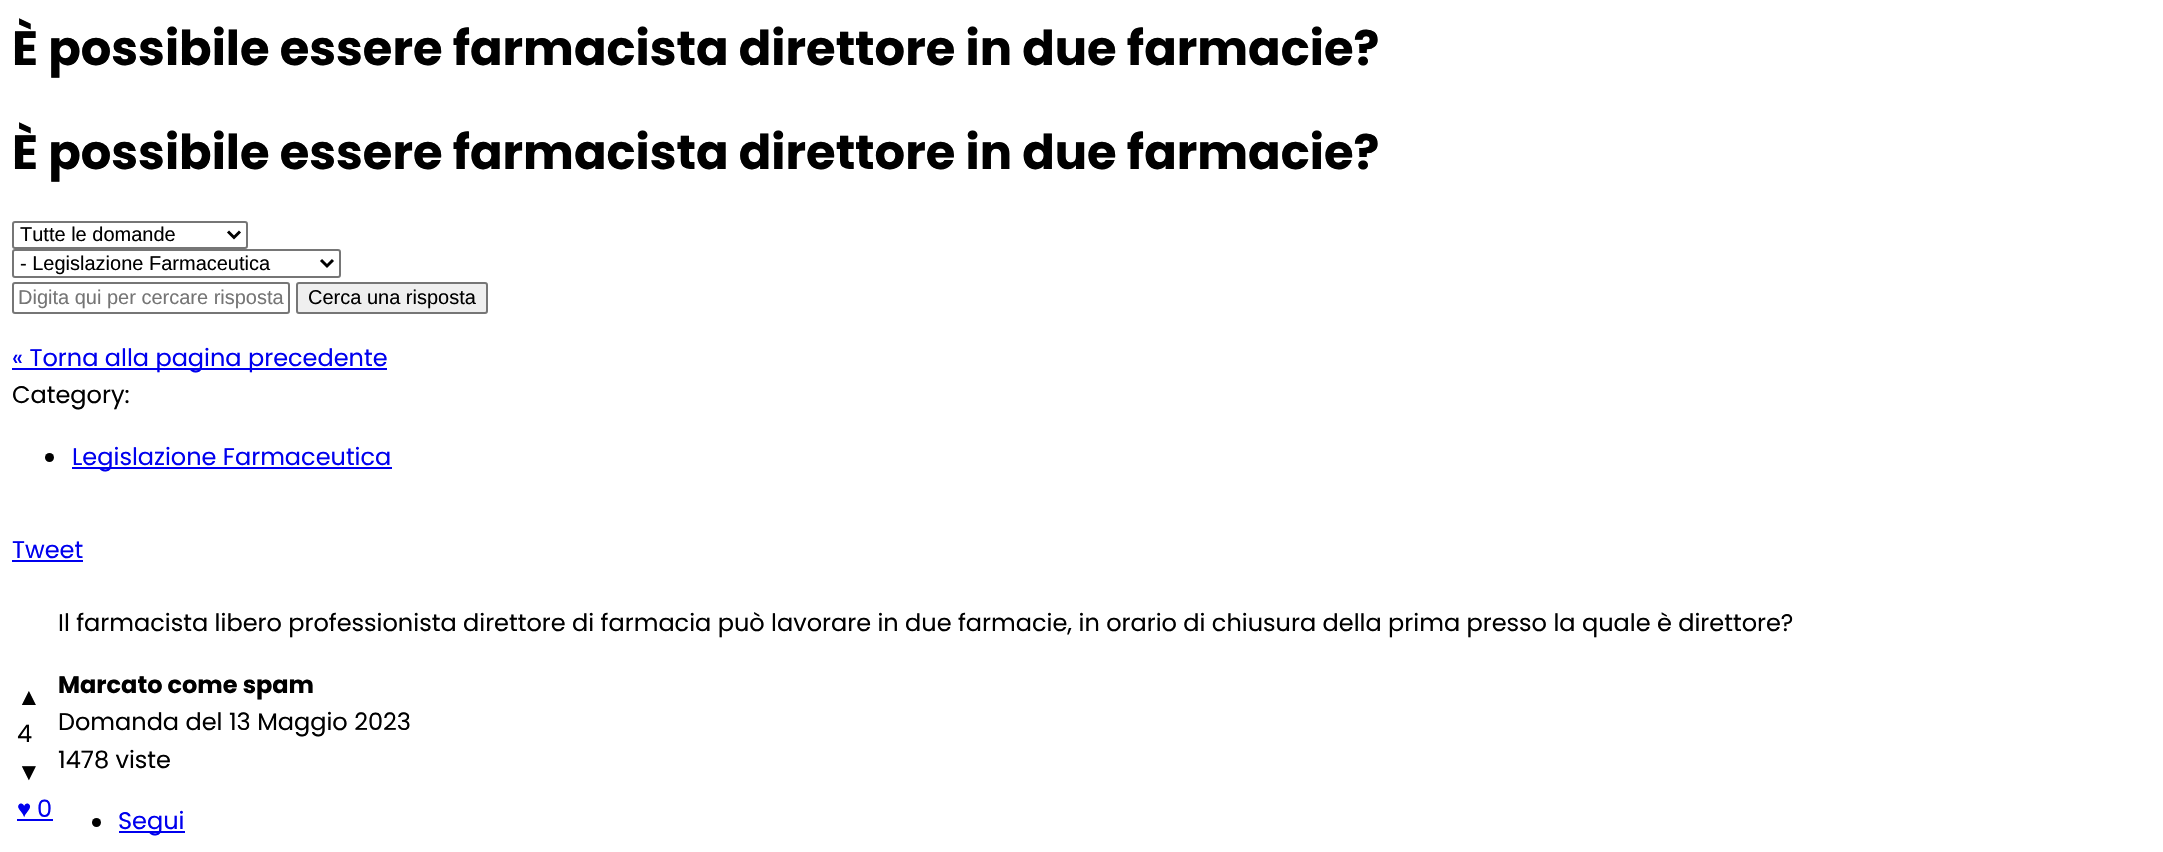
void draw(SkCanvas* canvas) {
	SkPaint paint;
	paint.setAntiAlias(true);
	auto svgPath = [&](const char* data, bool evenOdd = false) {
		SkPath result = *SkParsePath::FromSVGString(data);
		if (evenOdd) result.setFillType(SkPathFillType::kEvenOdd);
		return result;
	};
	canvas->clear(0xffffffff);
	SkFont f1(fontMgr->matchFamilyStyle("Poppins", SkFontStyle::Bold()), 48);
	f1.setSubpixel(true);
	paint.setColor(0xff000000);
	canvas->drawString("È possibile essere farmacista direttore in due farmacie?", 12, 65, f1, paint);
	canvas->drawString("È possibile essere farmacista direttore in due farmacie?", 12, 169, f1, paint);
	paint.setStroke(true);
	paint.setStrokeWidth(2);
	paint.setColor(0xff767676);
	canvas->drawRoundRect(SkRect::MakeXYWH(13, 222, 234, 26), 2, 2, paint);
	paint.setStrokeWidth(3);
	paint.setColor(0xff000000);
	canvas->drawPath(svgPath("M228 231.5L234 237.5L240 231.5"), paint);
	SkFont f2(fontMgr->matchFamilyStyle("Liberation Sans", SkFontStyle::Normal()), 20);
	f2.setSubpixel(true);
	paint.setStroke(false);
	canvas->drawString("Tutte le domande", 20, 241, f2, paint);
	paint.setStroke(true);
	paint.setStrokeWidth(2);
	paint.setColor(0xff767676);
	canvas->drawRoundRect(SkRect::MakeXYWH(13, 250, 327, 27), 2, 2, paint);
	paint.setStrokeWidth(3);
	paint.setColor(0xff000000);
	canvas->drawPath(svgPath("M321 260L327 266L333 260"), paint);
	paint.setStroke(false);
	canvas->drawString("- Legislazione Farmaceutica", 20, 270, f2, paint);
	paint.setStroke(true);
	paint.setStrokeWidth(2);
	paint.setColor(0xff767676);
	canvas->drawRoundRect(SkRect::MakeXYWH(13, 283, 276, 30), 2, 2, paint);
	paint.setStroke(false);
	paint.setColor(0xff757575);
	canvas->drawString("Digita qui per cercare risposta", 18, 304, f2, paint);
	paint.setColor(0xffefefef);
	canvas->drawRoundRect(SkRect::MakeXYWH(297, 283, 190, 30), 2, 2, paint);
	paint.setStroke(true);
	paint.setColor(0xff767676);
	canvas->drawRoundRect(SkRect::MakeXYWH(297, 283, 190, 30), 2, 2, paint);
	paint.setStroke(false);
	paint.setColor(0xff000000);
	canvas->drawString("Cerca una risposta", 308, 304, f2, paint);
	paint.setColor(0xff0000ee);
	canvas->drawRect(SkRect::MakeXYWH(12, 368, 375, 2), paint);
	SkFont f3(fontMgr->matchFamilyStyle("Poppins", SkFontStyle::Normal()), 24);
	f3.setSubpixel(true);
	canvas->drawString("« Torna alla pagina precedente", 12, 366, f3, paint);
	paint.setColor(0xff000000);
	canvas->drawString("Category:", 12, 403, f3, paint);
	canvas->drawCircle(49.5, 457.5, 4.5, paint);
	paint.setColor(0xff0000ee);
	canvas->drawRect(SkRect::MakeXYWH(72, 467, 320, 2), paint);
	canvas->drawString("Legislazione Farmaceutica", 72, 465, f3, paint);
	canvas->drawString("Tweet", 12, 558, f3, paint);
	canvas->drawRect(SkRect::MakeXYWH(12, 560, 71, 2), paint);
	SkFont f4(fontMgr->matchFamilyStyle("Liberation Serif", SkFontStyle::Normal()), 24);
	f4.setSubpixel(true);
	paint.setColor(0xff000000);
	canvas->drawString("▲", 17, 705, f4, paint);
	canvas->drawString("4", 17, 742, f3, paint);
	canvas->drawString("▼", 17, 780, f4, paint);
	paint.setColor(0xff0000ee);
	canvas->drawString("♥", 17, 817, f4, paint);
	canvas->drawRect(SkRect::MakeXYWH(17, 819, 36, 2), paint);
	canvas->drawString("0", 37, 817, f3, paint);
	paint.setColor(0xff000000);
	canvas->drawString("Il farmacista libero professionista direttore di farmacia può lavorare in due farmacie, in orario di chiusura della prima presso la quale è direttore?", 58, 631, f3, paint);
	SkFont f5(fontMgr->matchFamilyStyle("Poppins", SkFontStyle::Bold()), 24);
	f5.setSubpixel(true);
	canvas->drawString("Marcato come spam", 58, 693, f5, paint);
	canvas->drawString("Domanda del 13 Maggio 2023", 58, 730, f3, paint);
	canvas->drawString("1478 viste", 58, 768, f3, paint);
	canvas->drawCircle(96.5, 822.5, 4.5, paint);
	paint.setColor(0xff0000ee);
	canvas->drawRect(SkRect::MakeXYWH(119, 831, 66, 2), paint);
	canvas->drawString("Segui", 118, 829, f3, paint);
}
